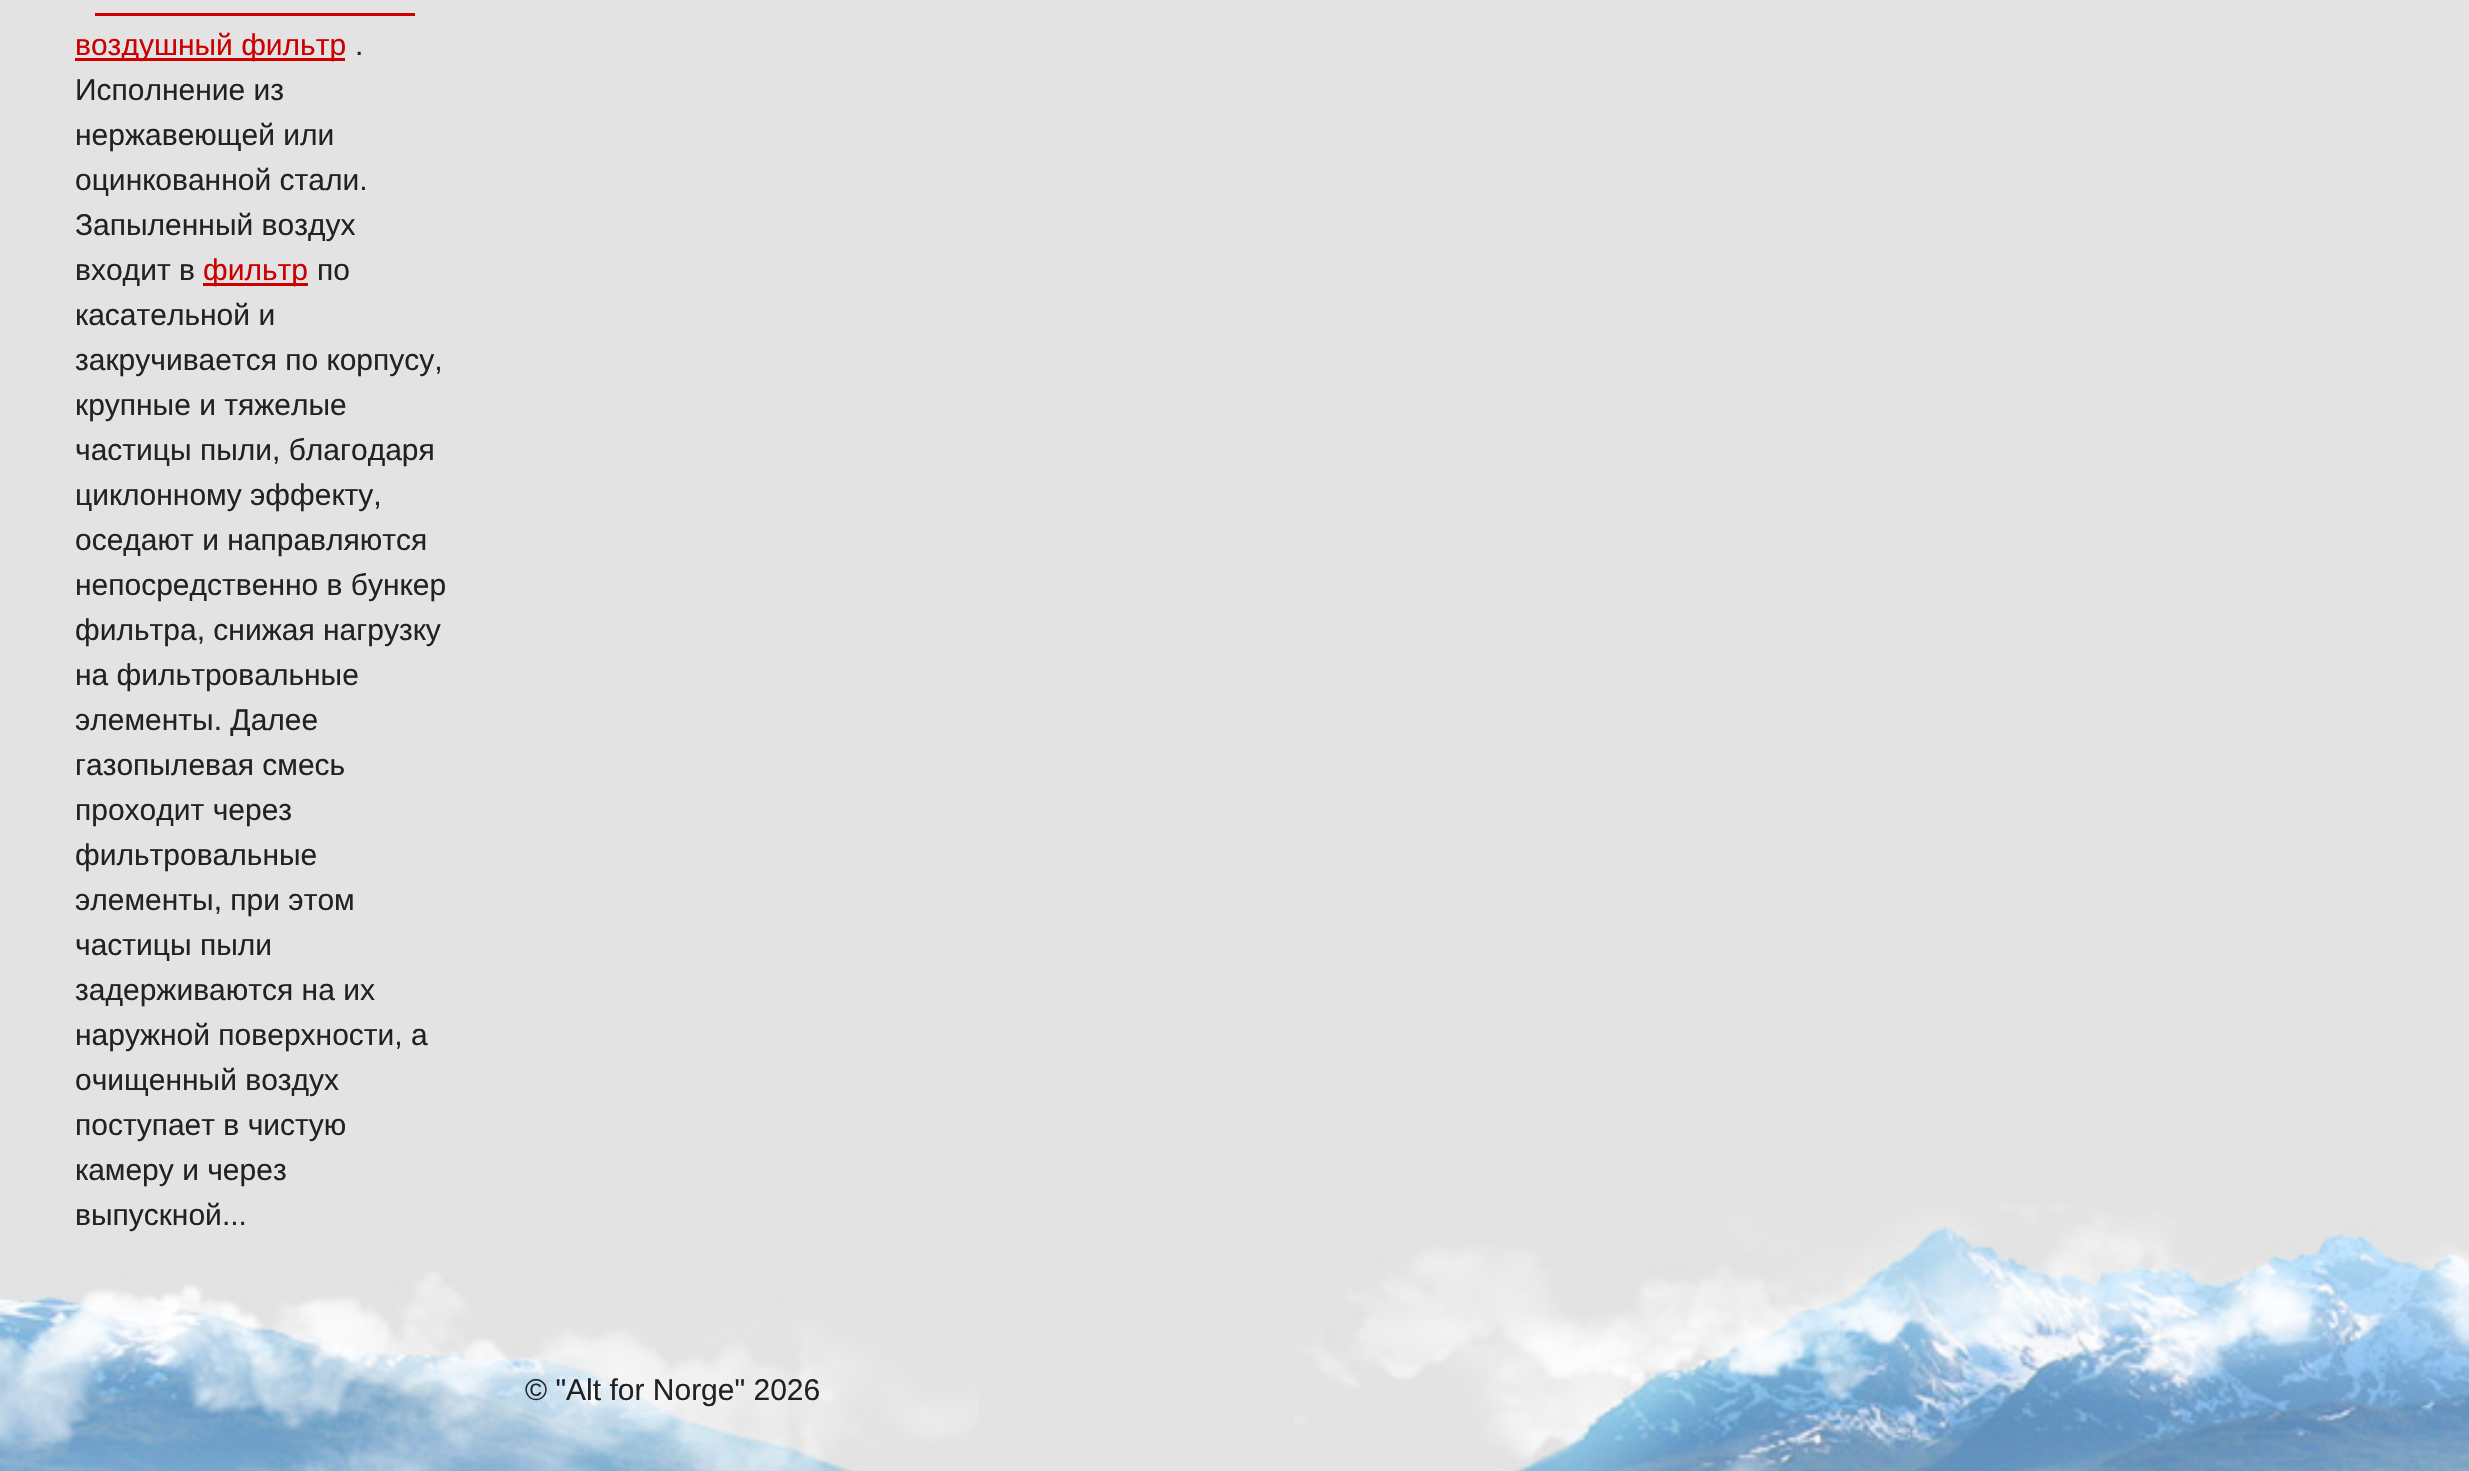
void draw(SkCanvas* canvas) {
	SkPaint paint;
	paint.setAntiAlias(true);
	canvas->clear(0xffe3e3e3);
	paint.setColor(0xffcc0000);
	canvas->drawRect(SkRect::MakeXYWH(75, 58, 270, 3), paint);
	SkFont f1(fontMgr->matchFamilyStyle("Liberation Sans", SkFontStyle::Normal()), 30);
	f1.setSubpixel(true);
	canvas->drawString("воздушный фильтр", 75, 55, f1, paint);
	canvas->drawRect(SkRect::MakeXYWH(95, 13, 320, 3), paint);
	paint.setColor(0xff222222);
	canvas->drawString(".", 355, 55, f1, paint);
	canvas->drawString("Исполнение из", 75, 100, f1, paint);
	canvas->drawString("нержавеющей или", 75, 145, f1, paint);
	canvas->drawString("оцинкованной стали.", 75, 190, f1, paint);
	canvas->drawString("Запыленный воздух", 75, 235, f1, paint);
	canvas->drawString("входит в", 75, 280, f1, paint);
	paint.setColor(0xffcc0000);
	canvas->drawRect(SkRect::MakeXYWH(203, 283, 105, 3), paint);
	canvas->drawString("фильтр", 203, 280, f1, paint);
	paint.setColor(0xff222222);
	canvas->drawString("по", 317, 280, f1, paint);
	canvas->drawString("касательной и", 75, 325, f1, paint);
	canvas->drawString("закручивается по корпусу,", 75, 370, f1, paint);
	canvas->drawString("крупные и тяжелые", 75, 415, f1, paint);
	canvas->drawString("частицы пыли, благодаря", 75, 460, f1, paint);
	canvas->drawString("циклонному эффекту,", 75, 505, f1, paint);
	canvas->drawString("оседают и направляются", 75, 550, f1, paint);
	canvas->drawString("непосредственно в бункер", 75, 595, f1, paint);
	canvas->drawString("фильтра, снижая нагрузку", 75, 640, f1, paint);
	canvas->drawString("на фильтровальные", 75, 685, f1, paint);
	canvas->drawString("элементы. Далее", 75, 730, f1, paint);
	canvas->drawString("газопылевая смесь", 75, 775, f1, paint);
	canvas->drawString("проходит через", 75, 820, f1, paint);
	canvas->drawString("фильтровальные", 75, 865, f1, paint);
	canvas->drawString("элементы, при этом", 75, 910, f1, paint);
	canvas->drawString("частицы пыли", 75, 955, f1, paint);
	canvas->drawString("задерживаются на их", 75, 1000, f1, paint);
	canvas->drawString("наружной поверхности, а", 75, 1045, f1, paint);
	canvas->drawString("очищенный воздух", 75, 1090, f1, paint);
	canvas->drawString("поступает в чистую", 75, 1135, f1, paint);
	canvas->drawString("камеру и через", 75, 1180, f1, paint);
	canvas->drawString("выпускной...", 75, 1225, f1, paint);
	canvas->drawImageRect(SkImages::DeferredFromEncodedData(SkData::MakeFromFileName("img1.png")), SkRect::MakeXYWH(0, 1272, 979, 199), SkSamplingOptions());
	canvas->drawImageRect(SkImages::DeferredFromEncodedData(SkData::MakeFromFileName("img2.png")), SkRect::MakeXYWH(1295, 1205, 1174, 266), SkSamplingOptions());
	canvas->drawString("© \"Alt for Norge\" 2026", 525, 1400, f1, paint);
}
